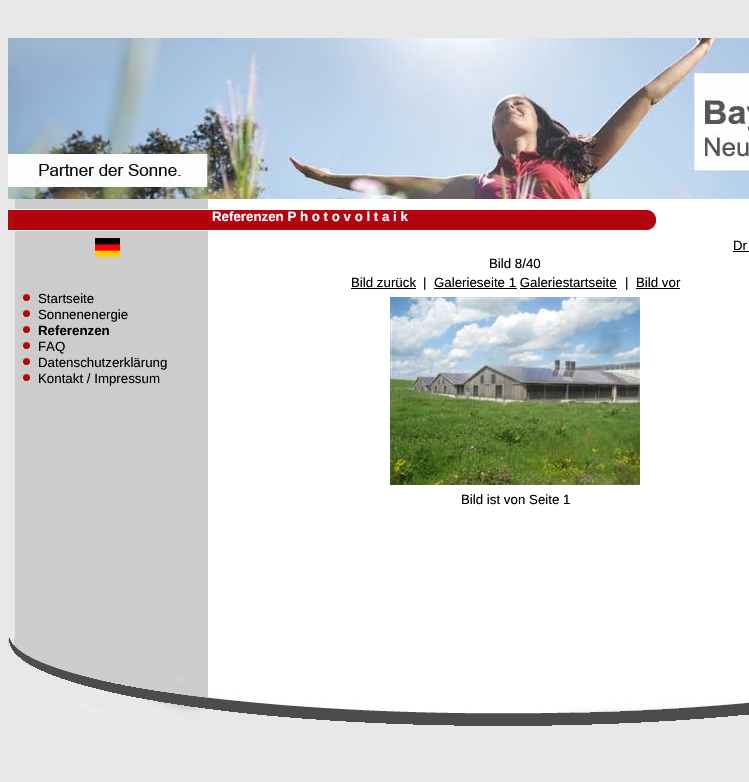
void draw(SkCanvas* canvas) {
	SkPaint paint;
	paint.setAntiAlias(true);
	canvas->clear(0xffe8e8e8);
	canvas->drawImageRect(SkImages::DeferredFromEncodedData(SkData::MakeFromFileName("img1.png")), SkRect::MakeXYWH(8, 38, 741, 161), SkSamplingOptions());
	paint.setColor(0xffccccce);
	canvas->drawRect(SkRect::MakeXYWH(15, 199, 193, 10), paint);
	paint.setColor(0xffffffff);
	canvas->drawRect(SkRect::MakeXYWH(208, 199, 541, 10), paint);
	canvas->drawImageRect(SkImages::DeferredFromEncodedData(SkData::MakeFromFileName("img2.png")), SkRect::MakeXYWH(8, 209, 7, 22), SkSamplingOptions());
	paint.setColor(0xffcccccc);
	canvas->drawRect(SkRect::MakeXYWH(15, 231, 193, 407), paint);
	canvas->drawImageRect(SkImages::DeferredFromEncodedData(SkData::MakeFromFileName("img3.png")), SkRect::MakeXYWH(15, 209, 193, 22), SkSamplingOptions());
	paint.setColor(0xffffffff);
	canvas->drawRect(SkRect::MakeXYWH(208, 209, 541, 429), paint);
	canvas->drawImageRect(SkImages::DeferredFromEncodedData(SkData::MakeFromFileName("img4.png")), SkRect::MakeXYWH(208, 209, 448, 22), SkSamplingOptions());
	SkFont f1(fontMgr->matchFamilyStyle("Liberation Sans", SkFontStyle::Bold()), 13.3);
	f1.setSubpixel(true);
	canvas->drawString("Referenzen P h o t o v o l t a i k", 212, 221, f1, paint);
	canvas->drawImageRect(SkImages::DeferredFromEncodedData(SkData::MakeFromFileName("img5.png")), SkRect::MakeXYWH(95, 238, 25, 19), SkSamplingOptions());
	canvas->drawImageRect(SkImages::DeferredFromEncodedData(SkData::MakeFromFileName("img6.png")), SkRect::MakeXYWH(23, 294, 7, 8), SkSamplingOptions());
	SkFont f2(fontMgr->matchFamilyStyle("Liberation Sans", SkFontStyle::Normal()), 13.3);
	f2.setSubpixel(true);
	paint.setColor(0xff000000);
	canvas->drawString("Startseite", 38, 303, f2, paint);
	canvas->drawImageRect(SkImages::DeferredFromEncodedData(SkData::MakeFromFileName("img6.png")), SkRect::MakeXYWH(23, 310, 7, 8), SkSamplingOptions());
	canvas->drawString("Sonnenenergie", 38, 319, f2, paint);
	canvas->drawImageRect(SkImages::DeferredFromEncodedData(SkData::MakeFromFileName("img6.png")), SkRect::MakeXYWH(23, 326, 7, 8), SkSamplingOptions());
	canvas->drawString("Referenzen", 38, 335, f1, paint);
	canvas->drawImageRect(SkImages::DeferredFromEncodedData(SkData::MakeFromFileName("img6.png")), SkRect::MakeXYWH(23, 342, 7, 8), SkSamplingOptions());
	canvas->drawString("FAQ", 38, 351, f2, paint);
	canvas->drawImageRect(SkImages::DeferredFromEncodedData(SkData::MakeFromFileName("img6.png")), SkRect::MakeXYWH(23, 358, 7, 8), SkSamplingOptions());
	canvas->drawString("Datenschutzerklärung", 38, 367, f2, paint);
	canvas->drawImageRect(SkImages::DeferredFromEncodedData(SkData::MakeFromFileName("img6.png")), SkRect::MakeXYWH(23, 374, 7, 8), SkSamplingOptions());
	canvas->drawString("Kontakt / Impressum", 38, 383, f2, paint);
	canvas->drawString("Dr", 733, 250, f2, paint);
	canvas->drawRect(SkRect::MakeXYWH(733, 251, 16, 1), paint);
	canvas->drawString("Bild 8/40", 489, 268, f2, paint);
	canvas->drawString("Bild zurück", 351, 287, f2, paint);
	canvas->drawRect(SkRect::MakeXYWH(351, 288, 65, 1), paint);
	canvas->drawString("|", 423, 287, f2, paint);
	canvas->drawString("Galerieseite 1 Galeriestartseite", 434, 287, f2, paint);
	canvas->drawRect(SkRect::MakeXYWH(434, 288, 83, 1), paint);
	canvas->drawString("|", 625, 287, f2, paint);
	canvas->drawString("Bild vor", 636, 287, f2, paint);
	canvas->drawRect(SkRect::MakeXYWH(636, 288, 44, 1), paint);
	canvas->drawRect(SkRect::MakeXYWH(520, 288, 97, 1), paint);
	canvas->drawImageRect(SkImages::DeferredFromEncodedData(SkData::MakeFromFileName("img7.png")), SkRect::MakeXYWH(390, 297, 250, 188), SkSamplingOptions());
	canvas->drawString("Bild ist von Seite 1", 461, 504, f2, paint);
	canvas->drawImageRect(SkImages::DeferredFromEncodedData(SkData::MakeFromFileName("img8.png")), SkRect::MakeXYWH(8, 638, 741, 88), SkSamplingOptions());
}
